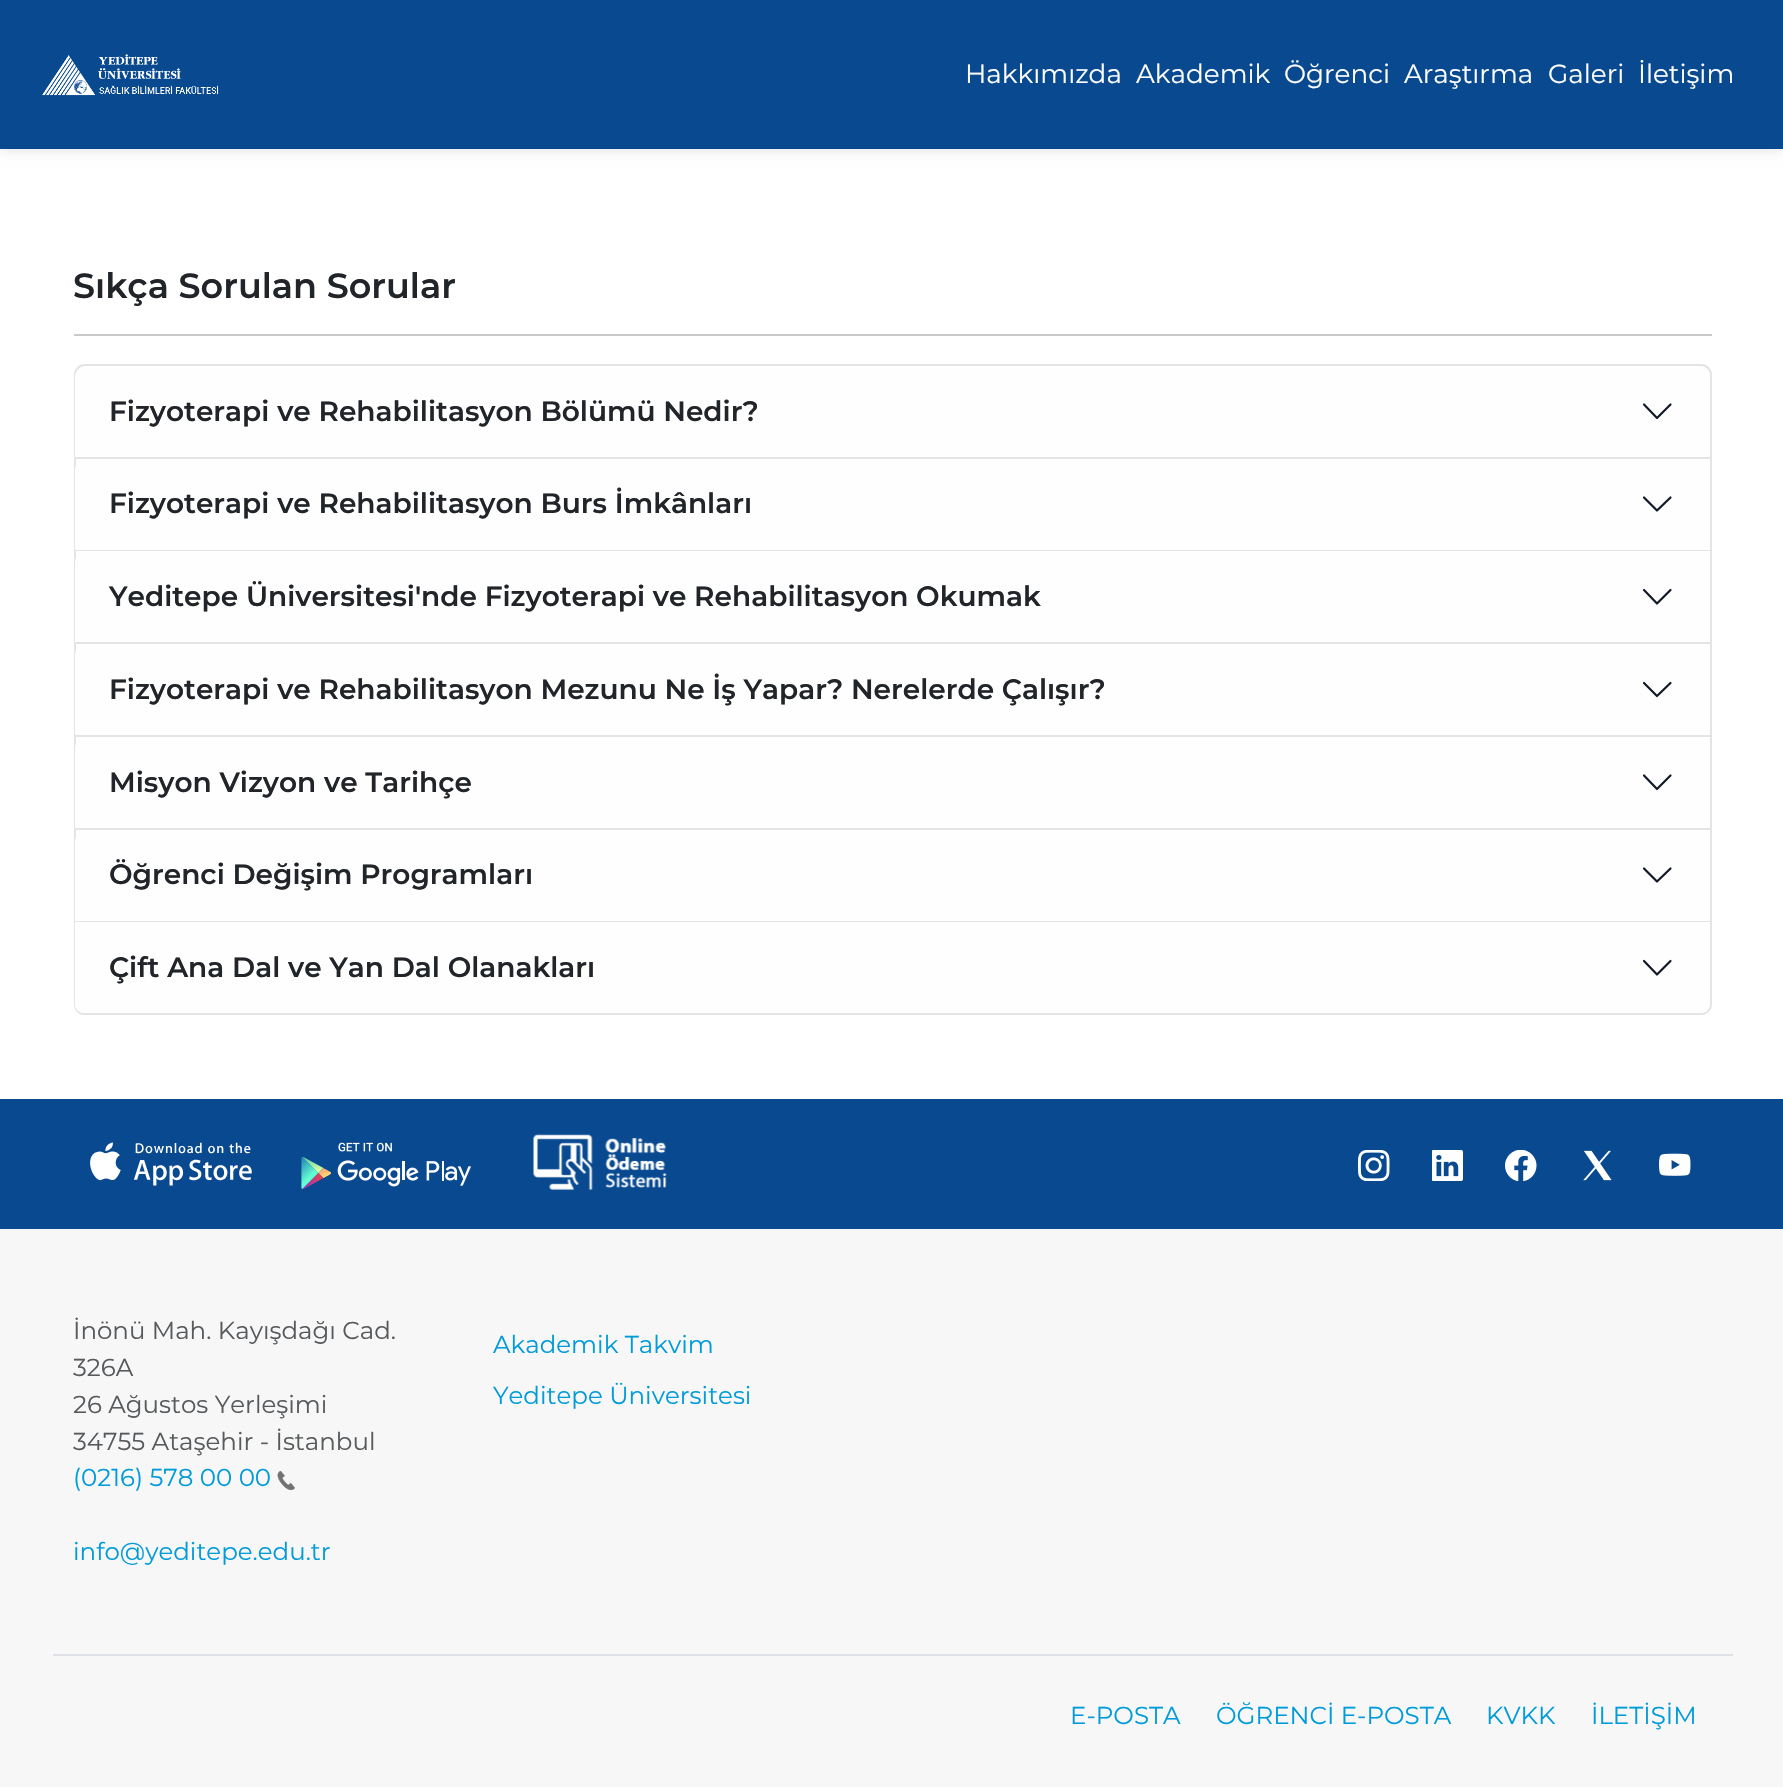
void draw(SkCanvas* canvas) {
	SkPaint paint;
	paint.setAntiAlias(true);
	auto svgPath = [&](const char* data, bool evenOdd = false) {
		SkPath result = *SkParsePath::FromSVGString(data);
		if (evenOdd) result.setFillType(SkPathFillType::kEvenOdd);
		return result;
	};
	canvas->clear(0xffffffff);
	paint.setColor(0x21000000);
	paint.setMaskFilter(SkMaskFilter::MakeBlur(kNormal_SkBlurStyle, 6));
	canvas->drawRect(SkRect::MakeXYWH(0, 0, 1783, 149), paint);
	paint.setMaskFilter(nullptr);
	paint.setColor(0xff084990);
	canvas->drawRect(SkRect::MakeXYWH(0, 0, 1783, 149), paint);
	canvas->drawImageRect(SkImages::DeferredFromEncodedData(SkData::MakeFromFileName("img1.png")), SkRect::MakeXYWH(42, 54, 177, 42), SkSamplingOptions());
	SkFont f1(fontMgr->matchFamilyStyle("Montserrat", SkFontStyle::Normal()), 26.25);
	f1.setSubpixel(true);
	paint.setColor(0xffffffff);
	canvas->drawString("Hakkımızda", 965, 83, f1, paint);
	canvas->drawString("Akademik", 1136, 83, f1, paint);
	canvas->drawString("Öğrenci", 1284, 83, f1, paint);
	canvas->drawString("Araştırma", 1404, 83, f1, paint);
	canvas->drawString("Galeri", 1548, 83, f1, paint);
	canvas->drawString("İletişim", 1638, 83, f1, paint);
	SkFont f2(fontMgr->matchFamilyStyle("Montserrat", SkFontStyle(600, SkFontStyle::kNormal_Width, SkFontStyle::kUpright_Slant)), 35);
	f2.setSubpixel(true);
	paint.setColor(0xff212529);
	canvas->drawString("Sıkça Sorulan Sorular", 73, 298, f2, paint);
	paint.setColor(0xffc8c9ca);
	canvas->drawRect(SkRect::MakeXYWH(74, 334, 1638, 2), paint);
	paint.setStroke(true);
	paint.setStrokeWidth(2);
	paint.setColor(0xffe4e4e4);
	canvas->drawPath(svgPath("M85 365H1701C1706.5 365 1711 369.5 1711 375V458H75V375C75 369.5 79.5 365 85 365Z"), paint);
	paint.setStroke(false);
	paint.setColor(0xfffefefe);
	canvas->drawPath(svgPath("M86 366H1699C1705 366 1710 371 1710 377V457H75V377C75 371 80 366 86 366Z"), paint);
	SkFont f3(fontMgr->matchFamilyStyle("Montserrat", SkFontStyle(600, SkFontStyle::kNormal_Width, SkFontStyle::kUpright_Slant)), 28);
	f3.setSubpixel(true);
	paint.setColor(0xff212529);
	canvas->drawString("Fizyoterapi ve Rehabilitasyon Bölümü Nedir?", 109, 421, f3, paint);
	paint.setStroke(true);
	paint.setStrokeWidth(2.2);
	paint.setStrokeCap(SkPaint::kRound_Cap);
	paint.setStrokeJoin(SkPaint::kRound_Join);
	paint.setColor(0xff111827);
	canvas->drawPath(svgPath("M1644 404.5L1657 418L1670.5 404.5"), paint);
	paint.setStroke(false);
	paint.setColor(0xffe4e4e4);
	canvas->drawRect(SkRect::MakeXYWH(1710, 459, 2, 463), paint);
	canvas->drawRect(SkRect::MakeXYWH(74, 550, 1638, 1), paint);
	canvas->drawRect(SkRect::MakeXYWH(74, 459, 2, 92), paint);
	paint.setColor(0xfffefefe);
	canvas->drawPath(svgPath("M86 459H1699C1705 459 1710 464 1710 470V550H75V470C75 464 80 459 86 459Z"), paint);
	paint.setColor(0xff212529);
	canvas->drawString("Fizyoterapi ve Rehabilitasyon Burs İmkânları", 109, 513, f3, paint);
	paint.setStroke(true);
	paint.setColor(0xff111827);
	canvas->drawPath(svgPath("M1644 497.5L1657 510.5L1670.5 497.5"), paint);
	paint.setStroke(false);
	paint.setColor(0xffe4e4e4);
	canvas->drawRect(SkRect::MakeXYWH(74, 642, 1638, 2), paint);
	canvas->drawRect(SkRect::MakeXYWH(74, 551, 2, 93), paint);
	paint.setColor(0xfffefefe);
	canvas->drawPath(svgPath("M86 551H1699C1705 551 1710 556 1710 562V642H75V562C75 556 80 551 86 551Z"), paint);
	paint.setColor(0xff212529);
	canvas->drawString("Yeditepe Üniversitesi'nde Fizyoterapi ve Rehabilitasyon Okumak", 109, 606, f3, paint);
	paint.setStroke(true);
	paint.setColor(0xff111827);
	canvas->drawPath(svgPath("M1644 590L1657 603.5L1670.5 590"), paint);
	paint.setStroke(false);
	paint.setColor(0xffe4e4e4);
	canvas->drawRect(SkRect::MakeXYWH(74, 735, 1638, 2), paint);
	canvas->drawRect(SkRect::MakeXYWH(74, 644, 2, 93), paint);
	paint.setColor(0xfffefefe);
	canvas->drawPath(svgPath("M86 644H1699C1705 644 1710 649 1710 655V735H75V655C75 649 80 644 86 644Z"), paint);
	paint.setColor(0xff212529);
	canvas->drawString("Fizyoterapi ve Rehabilitasyon Mezunu Ne İş Yapar? Nerelerde Çalışır?", 109, 699, f3, paint);
	paint.setStroke(true);
	paint.setColor(0xff111827);
	canvas->drawPath(svgPath("M1644 683L1657 696L1670.5 683"), paint);
	paint.setStroke(false);
	paint.setColor(0xffe4e4e4);
	canvas->drawRect(SkRect::MakeXYWH(74, 828, 1638, 2), paint);
	canvas->drawRect(SkRect::MakeXYWH(74, 737, 2, 93), paint);
	paint.setColor(0xfffefefe);
	canvas->drawPath(svgPath("M86 737H1699C1705 737 1710 742 1710 748V828H75V748C75 742 80 737 86 737Z"), paint);
	paint.setColor(0xff212529);
	canvas->drawString("Misyon Vizyon ve Tarihçe", 109, 792, f3, paint);
	paint.setStroke(true);
	paint.setColor(0xff111827);
	canvas->drawPath(svgPath("M1644 775.5L1657 789L1670.5 775.5"), paint);
	paint.setStroke(false);
	paint.setColor(0xffe4e4e4);
	canvas->drawRect(SkRect::MakeXYWH(74, 921, 1638, 1), paint);
	canvas->drawRect(SkRect::MakeXYWH(74, 830, 2, 92), paint);
	paint.setColor(0xfffefefe);
	canvas->drawPath(svgPath("M86 830H1699C1705 830 1710 835 1710 841V921H75V841C75 835 80 830 86 830Z"), paint);
	paint.setColor(0xff212529);
	canvas->drawString("Öğrenci Değişim Programları", 109, 884, f3, paint);
	paint.setStroke(true);
	paint.setColor(0xff111827);
	canvas->drawPath(svgPath("M1644 868.5L1657 881.5L1670.5 868.5"), paint);
	paint.setStroke(false);
	paint.setColor(0xffe4e4e4);
	canvas->drawPath(svgPath("M74 922H1712V1004C1712 1010 1707 1015 1701 1015H84C78 1015 74 1010 74 1004ZM75 922H1710V1004C1710 1009 1706 1013 1701 1013H84C79 1013 75 1009 75 1004Z", true), paint);
	paint.setColor(0xfffefefe);
	canvas->drawPath(svgPath("M86 922H1699C1705 922 1710 927 1710 933V1004C1710 1009 1706 1013 1701 1013H84C79 1013 75 1009 75 1004V933C75 927 80 922 86 922Z"), paint);
	paint.setColor(0xff212529);
	canvas->drawString("Çift Ana Dal ve Yan Dal Olanakları", 109, 977, f3, paint);
	paint.setStroke(true);
	paint.setColor(0xff111827);
	canvas->drawPath(svgPath("M1644 961L1657 974.5L1670.5 961"), paint);
	paint.setStroke(false);
	paint.setColor(0xff084990);
	canvas->drawRect(SkRect::MakeXYWH(0, 1099, 1783, 130), paint);
	canvas->drawImageRect(SkImages::DeferredFromEncodedData(SkData::MakeFromFileName("img2.png")), SkRect::MakeXYWH(90, 1142, 162, 44), SkSamplingOptions());
	canvas->drawImageRect(SkImages::DeferredFromEncodedData(SkData::MakeFromFileName("img3.png")), SkRect::MakeXYWH(301, 1142, 170, 48), SkSamplingOptions());
	canvas->drawImageRect(SkImages::DeferredFromEncodedData(SkData::MakeFromFileName("img4.png")), SkRect::MakeXYWH(533, 1134, 134, 56), SkSamplingOptions());
	canvas->drawImageRect(SkImages::DeferredFromEncodedData(SkData::MakeFromFileName("img5.png")), SkRect::MakeXYWH(1358, 1150, 32, 31), SkSamplingOptions());
	canvas->drawImageRect(SkImages::DeferredFromEncodedData(SkData::MakeFromFileName("img6.png")), SkRect::MakeXYWH(1432, 1150, 31, 31), SkSamplingOptions());
	canvas->drawImageRect(SkImages::DeferredFromEncodedData(SkData::MakeFromFileName("img7.png")), SkRect::MakeXYWH(1505, 1150, 32, 31), SkSamplingOptions());
	canvas->drawImageRect(SkImages::DeferredFromEncodedData(SkData::MakeFromFileName("img8.png")), SkRect::MakeXYWH(1583, 1150, 29, 31), SkSamplingOptions());
	canvas->drawImageRect(SkImages::DeferredFromEncodedData(SkData::MakeFromFileName("img9.png")), SkRect::MakeXYWH(1659, 1153, 32, 23), SkSamplingOptions());
	paint.setColor(0xfff7f7f7);
	canvas->drawRect(SkRect::MakeXYWH(0, 1229, 1783, 558), paint);
	paint.setColor(0xffdee2e6);
	canvas->drawRect(SkRect::MakeXYWH(53, 1654, 1680, 2), paint);
	SkFont f4(fontMgr->matchFamilyStyle("Montserrat", SkFontStyle::Normal()), 24.5);
	f4.setSubpixel(true);
	paint.setColor(0xff575a5d);
	canvas->drawString("İnönü Mah. Kayışdağı Cad.", 73, 1339, f4, paint);
	canvas->drawString("326A", 73, 1376, f4, paint);
	canvas->drawString("26 Ağustos Yerleşimi", 73, 1413, f4, paint);
	canvas->drawString("34755 Ataşehir - İstanbul", 73, 1450, f4, paint);
	paint.setColor(0xff009bd9);
	canvas->drawString("(0216) 578 00 00", 73, 1486, f4, paint);
	canvas->drawImageRect(SkImages::DeferredFromEncodedData(SkData::MakeFromFileName("img10.png")), SkRect::MakeXYWH(277, 1471, 18, 20), SkSamplingOptions());
	canvas->drawString("info@yeditepe.edu.tr", 73, 1560, f4, paint);
	canvas->drawString("Akademik Takvim", 493, 1353, f4, paint);
	canvas->drawString("Yeditepe Üniversitesi", 493, 1404, f4, paint);
	canvas->drawString("E-POSTA", 1070, 1724, f4, paint);
	canvas->drawString("ÖĞRENCİ E-POSTA", 1216, 1724, f4, paint);
	canvas->drawString("KVKK", 1486, 1724, f4, paint);
	canvas->drawString("İLETİŞİM", 1591, 1724, f4, paint);
}
